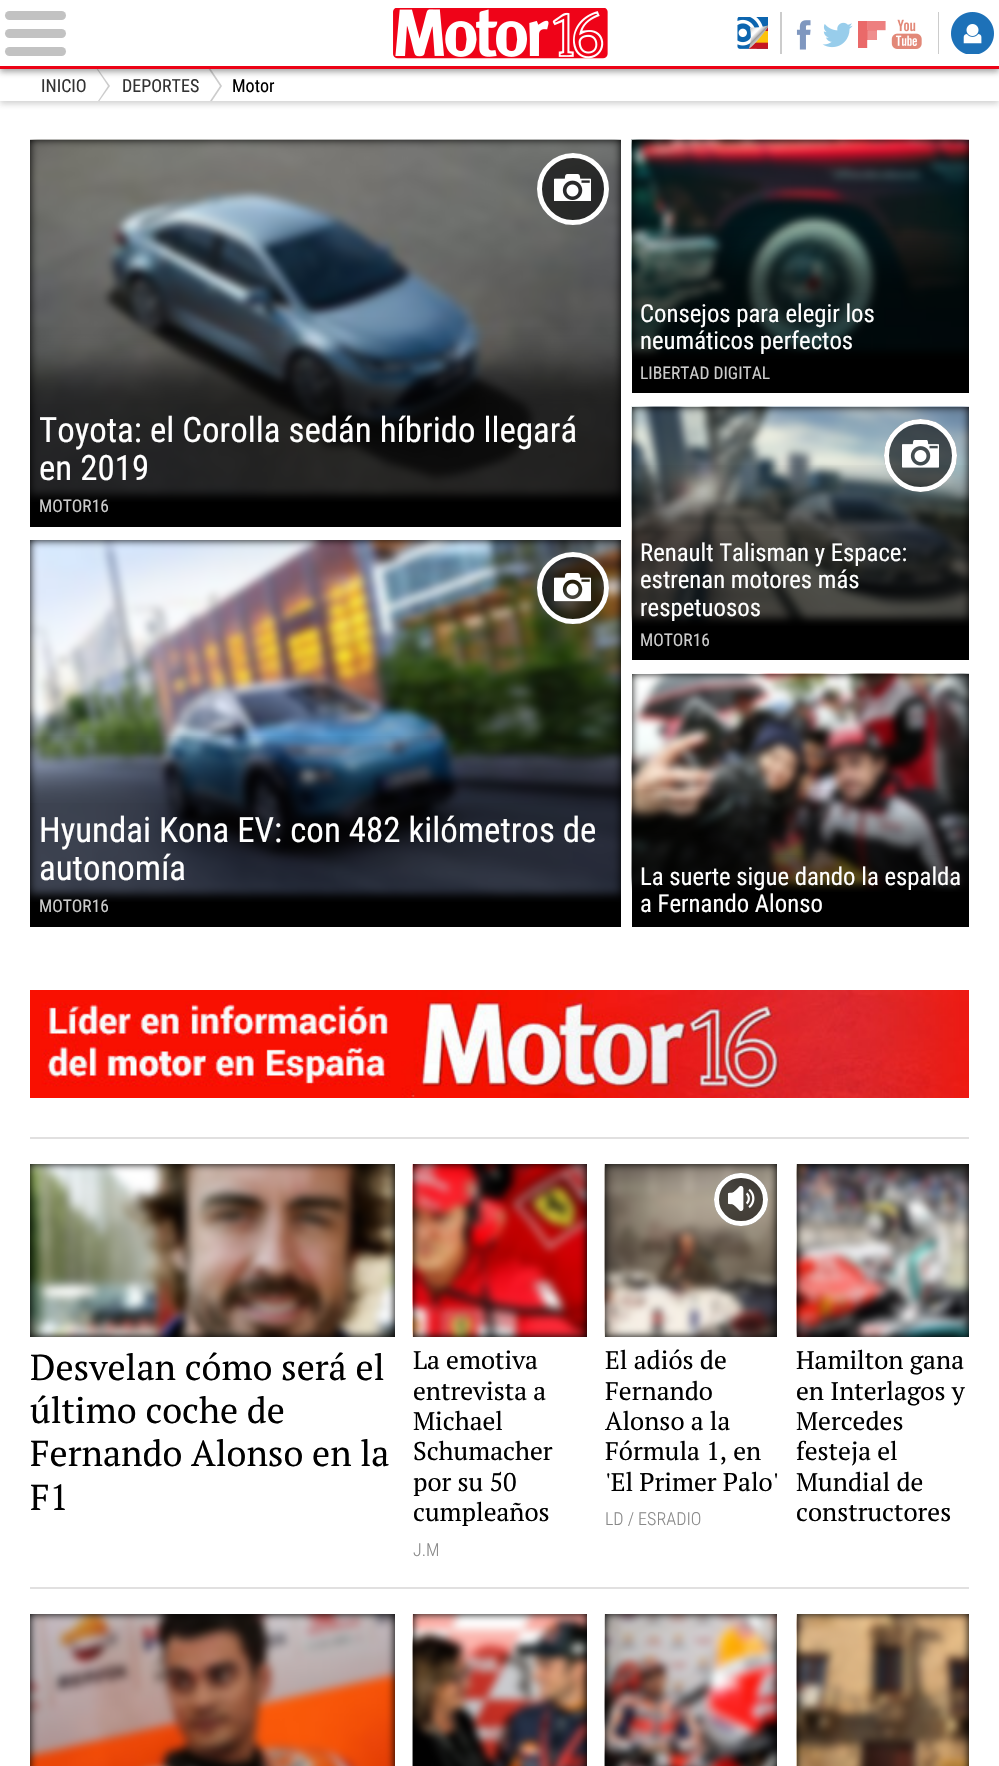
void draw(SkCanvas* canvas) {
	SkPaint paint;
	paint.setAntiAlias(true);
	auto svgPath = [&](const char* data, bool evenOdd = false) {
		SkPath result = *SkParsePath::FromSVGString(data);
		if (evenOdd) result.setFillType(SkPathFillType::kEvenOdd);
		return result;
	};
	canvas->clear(0xffffffff);
	paint.setColor(0x38323232);
	paint.setMaskFilter(SkMaskFilter::MakeBlur(kNormal_SkBlurStyle, 3));
	canvas->drawRect(SkRect::MakeXYWH(0, 71, 999, 33), paint);
	paint.setMaskFilter(nullptr);
	paint.setColor(0xffffffff);
	canvas->drawRect(SkRect::MakeXYWH(0, 69, 999, 32), paint);
	canvas->save();
	canvas->clipRect(SkRect::MakeXYWH(30, 68, 248, 33));
	paint.setColor(0xffcccccc);
	canvas->drawPath(svgPath("M93 110V62L110 86Z"), paint);
	paint.setColor(0xffffffff);
	canvas->drawPath(svgPath("M92 110V62L108 86Z"), paint);
	paint.setColor(0xffcccccc);
	canvas->drawPath(svgPath("M206 110V62L222 86Z"), paint);
	paint.setColor(0xffffffff);
	canvas->drawPath(svgPath("M204 110V62L220 86Z"), paint);
	canvas->restore();
	paint.setColor(0x70323232);
	paint.setMaskFilter(SkMaskFilter::MakeBlur(kNormal_SkBlurStyle, 3));
	canvas->drawRect(SkRect::MakeXYWH(0, 3, 999, 69), paint);
	paint.setMaskFilter(nullptr);
	paint.setColor(0xffffffff);
	canvas->drawRect(SkRect::MakeXYWH(0, 0, 999, 66), paint);
	paint.setColor(0xffed0216);
	canvas->drawRect(SkRect::MakeXYWH(0, 66, 999, 3), paint);
	paint.setColor(0xffc2c2c2);
	canvas->drawRoundRect(SkRect::MakeXYWH(5, 11, 61, 9), 4.5, 4.5, paint);
	canvas->drawRoundRect(SkRect::MakeXYWH(5, 29, 61, 9), 4.5, 4.5, paint);
	canvas->drawRoundRect(SkRect::MakeXYWH(5, 47, 61, 9), 4.5, 4.5, paint);
	canvas->drawImageRect(SkImages::DeferredFromEncodedData(SkData::MakeFromFileName("img1.png")), SkRect::MakeXYWH(393, 8, 215, 51), SkSamplingOptions());
	paint.setColor(0xffcccccc);
	canvas->drawRect(SkRect::MakeXYWH(780, 12, 2, 42), paint);
	canvas->drawImageRect(SkImages::DeferredFromEncodedData(SkData::MakeFromFileName("img2.png")), SkRect::MakeXYWH(737, 17, 31, 32), SkSamplingOptions());
	canvas->drawRect(SkRect::MakeXYWH(938, 12, 1, 42), paint);
	canvas->drawImageRect(SkImages::DeferredFromEncodedData(SkData::MakeFromFileName("img3.png")), SkRect::MakeXYWH(796, 20, 15, 30), SkSamplingOptions());
	canvas->drawImageRect(SkImages::DeferredFromEncodedData(SkData::MakeFromFileName("img4.png")), SkRect::MakeXYWH(822, 22, 31, 26), SkSamplingOptions());
	canvas->drawImageRect(SkImages::DeferredFromEncodedData(SkData::MakeFromFileName("img5.png")), SkRect::MakeXYWH(858, 21, 28, 27), SkSamplingOptions());
	canvas->drawImageRect(SkImages::DeferredFromEncodedData(SkData::MakeFromFileName("img6.png")), SkRect::MakeXYWH(891, 19, 31, 30), SkSamplingOptions());
	canvas->drawImageRect(SkImages::DeferredFromEncodedData(SkData::MakeFromFileName("img7.png")), SkRect::MakeXYWH(951, 12, 43, 42), SkSamplingOptions());
	SkFont f1(fontMgr->matchFamilyStyle("Roboto Condensed", SkFontStyle::Normal()), 18);
	f1.setSubpixel(true);
	paint.setColor(0xff333333);
	canvas->drawString("INICIO", 41, 92, f1, paint);
	canvas->drawString("DEPORTES", 122, 92, f1, paint);
	paint.setColor(0xff000000);
	canvas->drawString("Motor", 232, 92, f1, paint);
	canvas->drawRect(SkRect::MakeXYWH(30, 140, 591, 387), paint);
	canvas->drawImageRect(SkImages::DeferredFromEncodedData(SkData::MakeFromFileName("img8.png")), SkRect::MakeXYWH(30, 139, 591, 363), SkSamplingOptions());
	paint.setColor(0x99000000);
	canvas->drawCircle(573, 189, 36, paint);
	canvas->drawImageRect(SkImages::DeferredFromEncodedData(SkData::MakeFromFileName("img9.png")), SkRect::MakeXYWH(554, 174, 37, 27), SkSamplingOptions());
	paint.setStroke(true);
	paint.setStrokeWidth(5);
	paint.setColor(0xffffffff);
	canvas->drawCircle(573, 189, 33.5, paint);
	canvas->save();
	canvas->clipRect(SkRect::MakeXYWH(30, 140, 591, 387));
	canvas->clipPath(svgPath("M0 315H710V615H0ZM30 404H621V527H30Z", true), true);
	paint.setStroke(false);
	paint.setColor(0x99000000);
	paint.setMaskFilter(SkMaskFilter::MakeBlur(kNormal_SkBlurStyle, 17.5));
	canvas->drawRect(SkRect::MakeXYWH(-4, 369, 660, 192), paint);
	paint.setMaskFilter(nullptr);
	canvas->restore();
	canvas->drawRect(SkRect::MakeXYWH(30, 404, 591, 98), paint);
	SkFont f2(fontMgr->matchFamilyStyle("Roboto Condensed", SkFontStyle::Normal()), 34.9);
	f2.setSubpixel(true);
	paint.setColor(0xffffffff);
	canvas->drawString("Toyota: el Corolla sedán híbrido llegará", 39, 442, f2, paint);
	canvas->drawString("en 2019", 39, 480, f2, paint);
	SkFont f3(fontMgr->matchFamilyStyle("Roboto Condensed", SkFontStyle::Normal()), 17.5);
	f3.setSubpixel(true);
	paint.setColor(0xffcccccc);
	canvas->drawString("MOTOR16", 39, 512, f3, paint);
	paint.setColor(0xff000000);
	canvas->drawRect(SkRect::MakeXYWH(30, 540, 591, 387), paint);
	canvas->drawImageRect(SkImages::DeferredFromEncodedData(SkData::MakeFromFileName("img10.png")), SkRect::MakeXYWH(30, 540, 591, 362), SkSamplingOptions());
	paint.setColor(0x99000000);
	canvas->drawCircle(573, 588, 36, paint);
	canvas->drawImageRect(SkImages::DeferredFromEncodedData(SkData::MakeFromFileName("img11.png")), SkRect::MakeXYWH(554, 573, 37, 29), SkSamplingOptions());
	paint.setStroke(true);
	paint.setColor(0xffffffff);
	canvas->drawCircle(573, 588, 33.5, paint);
	canvas->save();
	canvas->clipRect(SkRect::MakeXYWH(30, 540, 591, 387));
	canvas->clipRect(SkRect::MakeXYWH(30, 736, 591, 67));
	paint.setStroke(false);
	paint.setColor(0x99000000);
	paint.setMaskFilter(SkMaskFilter::MakeBlur(kNormal_SkBlurStyle, 17.5));
	canvas->drawRect(SkRect::MakeXYWH(-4, 768, 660, 194), paint);
	paint.setMaskFilter(nullptr);
	canvas->restore();
	canvas->drawRect(SkRect::MakeXYWH(30, 803, 591, 99), paint);
	paint.setColor(0xffffffff);
	canvas->drawString("Hyundai Kona EV: con 482 kilómetros de", 39, 842, f2, paint);
	canvas->drawString("autonomía", 39, 880, f2, paint);
	paint.setColor(0xffcccccc);
	canvas->drawString("MOTOR16", 39, 912, f3, paint);
	paint.setColor(0xff000000);
	canvas->drawRect(SkRect::MakeXYWH(632, 140, 337, 253), paint);
	canvas->drawImageRect(SkImages::DeferredFromEncodedData(SkData::MakeFromFileName("img12.png")), SkRect::MakeXYWH(631, 139, 338, 220), SkSamplingOptions());
	canvas->save();
	canvas->clipRect(SkRect::MakeXYWH(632, 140, 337, 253));
	canvas->clipRect(SkRect::MakeXYWH(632, 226, 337, 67));
	paint.setColor(0x99000000);
	paint.setMaskFilter(SkMaskFilter::MakeBlur(kNormal_SkBlurStyle, 17.5));
	canvas->drawRect(SkRect::MakeXYWH(597, 258, 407, 170), paint);
	paint.setMaskFilter(nullptr);
	canvas->restore();
	canvas->drawRect(SkRect::MakeXYWH(632, 293, 337, 66), paint);
	SkFont f4(fontMgr->matchFamilyStyle("Roboto Condensed", SkFontStyle::Normal()), 24.75);
	f4.setSubpixel(true);
	paint.setColor(0xffffffff);
	canvas->drawString("Consejos para elegir los", 640, 322, f4, paint);
	canvas->drawString("neumáticos perfectos", 640, 349, f4, paint);
	paint.setColor(0xffcccccc);
	canvas->drawString("LIBERTAD DIGITAL", 640, 379, f3, paint);
	paint.setColor(0xff000000);
	canvas->drawRect(SkRect::MakeXYWH(632, 407, 337, 253), paint);
	canvas->drawImageRect(SkImages::DeferredFromEncodedData(SkData::MakeFromFileName("img13.png")), SkRect::MakeXYWH(631, 406, 338, 220), SkSamplingOptions());
	canvas->save();
	canvas->clipRect(SkRect::MakeXYWH(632, 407, 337, 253));
	canvas->clipRect(SkRect::MakeXYWH(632, 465, 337, 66));
	paint.setColor(0x99000000);
	paint.setMaskFilter(SkMaskFilter::MakeBlur(kNormal_SkBlurStyle, 17.5));
	canvas->drawRect(SkRect::MakeXYWH(597, 497, 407, 198), paint);
	paint.setMaskFilter(nullptr);
	canvas->restore();
	canvas->drawCircle(920.5, 455.5, 36.5, paint);
	canvas->drawImageRect(SkImages::DeferredFromEncodedData(SkData::MakeFromFileName("img14.png")), SkRect::MakeXYWH(902, 440, 37, 28), SkSamplingOptions());
	paint.setStroke(true);
	paint.setColor(0xffffffff);
	canvas->drawCircle(920.5, 455.5, 34, paint);
	paint.setStroke(false);
	paint.setColor(0x99000000);
	canvas->drawRect(SkRect::MakeXYWH(632, 531, 337, 95), paint);
	paint.setColor(0xffffffff);
	canvas->drawString("Renault Talisman y Espace:", 640, 561, f4, paint);
	canvas->drawString("estrenan motores más", 640, 588, f4, paint);
	canvas->drawString("respetuosos", 640, 616, f4, paint);
	paint.setColor(0xffcccccc);
	canvas->drawString("MOTOR16", 640, 646, f3, paint);
	paint.setColor(0xff000000);
	canvas->drawRect(SkRect::MakeXYWH(632, 674, 337, 253), paint);
	canvas->drawImageRect(SkImages::DeferredFromEncodedData(SkData::MakeFromFileName("img15.png")), SkRect::MakeXYWH(631, 673, 338, 219), SkSamplingOptions());
	canvas->save();
	canvas->clipRect(SkRect::MakeXYWH(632, 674, 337, 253));
	canvas->clipRect(SkRect::MakeXYWH(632, 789, 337, 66));
	paint.setColor(0x99000000);
	paint.setMaskFilter(SkMaskFilter::MakeBlur(kNormal_SkBlurStyle, 17.5));
	canvas->drawRect(SkRect::MakeXYWH(597, 821, 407, 141), paint);
	paint.setMaskFilter(nullptr);
	canvas->restore();
	canvas->drawRect(SkRect::MakeXYWH(632, 855, 337, 37), paint);
	paint.setColor(0xffffffff);
	canvas->drawString("La suerte sigue dando la espalda", 640, 885, f4, paint);
	canvas->drawString("a Fernando Alonso", 640, 912, f4, paint);
	paint.setColor(0xffe1e0e0);
	canvas->drawRect(SkRect::MakeXYWH(30, 1137, 939, 2), paint);
	canvas->drawImageRect(SkImages::DeferredFromEncodedData(SkData::MakeFromFileName("img16.png")), SkRect::MakeXYWH(30, 990, 939, 108), SkSamplingOptions());
	canvas->drawRect(SkRect::MakeXYWH(30, 1587, 939, 2), paint);
	paint.setColor(0xff000000);
	canvas->drawRect(SkRect::MakeXYWH(30, 1164, 365, 173), paint);
	canvas->drawImageRect(SkImages::DeferredFromEncodedData(SkData::MakeFromFileName("img17.png")), SkRect::MakeXYWH(30, 1164, 365, 173), SkSamplingOptions());
	SkFont f5(fontMgr->matchFamilyStyle("PT Serif", SkFontStyle::Normal()), 36);
	f5.setSubpixel(true);
	canvas->drawString("Desvelan cómo será el", 30, 1380, f5, paint);
	canvas->drawString("último coche de", 30, 1423, f5, paint);
	canvas->drawString("Fernando Alonso en la", 30, 1466, f5, paint);
	canvas->drawString("F1", 30, 1510, f5, paint);
	canvas->drawRect(SkRect::MakeXYWH(413, 1164, 174, 173), paint);
	canvas->drawImageRect(SkImages::DeferredFromEncodedData(SkData::MakeFromFileName("img18.png")), SkRect::MakeXYWH(412, 1164, 175, 173), SkSamplingOptions());
	SkFont f6(fontMgr->matchFamilyStyle("PT Serif", SkFontStyle::Normal()), 25.5);
	f6.setSubpixel(true);
	canvas->drawString("La emotiva", 413, 1369, f6, paint);
	canvas->drawString("entrevista a", 413, 1400, f6, paint);
	canvas->drawString("Michael", 413, 1430, f6, paint);
	canvas->drawString("Schumacher", 413, 1460, f6, paint);
	canvas->drawString("por su 50", 413, 1491, f6, paint);
	canvas->drawString("cumpleaños", 413, 1521, f6, paint);
	SkFont f7(fontMgr->matchFamilyStyle("Roboto Condensed", SkFontStyle(300, SkFontStyle::kNormal_Width, SkFontStyle::kUpright_Slant)), 18);
	f7.setSubpixel(true);
	paint.setColor(0xff888888);
	canvas->drawString("J.M", 413, 1556, f7, paint);
	paint.setColor(0xff000000);
	canvas->drawRect(SkRect::MakeXYWH(605, 1164, 172, 173), paint);
	canvas->drawImageRect(SkImages::DeferredFromEncodedData(SkData::MakeFromFileName("img19.png")), SkRect::MakeXYWH(604, 1164, 173, 173), SkSamplingOptions());
	paint.setColor(0x99000000);
	canvas->drawRoundRect(SkRect::MakeXYWH(714, 1173, 54, 53), 26.5, 26.5, paint);
	canvas->drawImageRect(SkImages::DeferredFromEncodedData(SkData::MakeFromFileName("img20.png")), SkRect::MakeXYWH(728, 1186, 27, 25), SkSamplingOptions());
	paint.setStroke(true);
	paint.setColor(0xffffffff);
	canvas->drawRoundRect(SkRect::MakeXYWH(716.5, 1175.5, 49, 48), 24, 24, paint);
	paint.setStroke(false);
	paint.setColor(0xff000000);
	canvas->drawString("El adiós de", 605, 1369, f6, paint);
	canvas->drawString("Fernando", 605, 1400, f6, paint);
	canvas->drawString("Alonso a la", 605, 1430, f6, paint);
	canvas->drawString("Fórmula 1, en", 605, 1460, f6, paint);
	canvas->drawString("'El Primer Palo'", 605, 1491, f6, paint);
	paint.setColor(0xff888888);
	canvas->drawString("LD / ESRADIO", 605, 1525, f7, paint);
	paint.setColor(0xff000000);
	canvas->drawRect(SkRect::MakeXYWH(797, 1164, 172, 173), paint);
	canvas->drawImageRect(SkImages::DeferredFromEncodedData(SkData::MakeFromFileName("img21.png")), SkRect::MakeXYWH(796, 1164, 173, 173), SkSamplingOptions());
	canvas->drawString("Hamilton gana", 796, 1369, f6, paint);
	canvas->drawString("en Interlagos y", 796, 1400, f6, paint);
	canvas->drawString("Mercedes", 796, 1430, f6, paint);
	canvas->drawString("festeja el", 796, 1460, f6, paint);
	canvas->drawString("Mundial de", 796, 1491, f6, paint);
	canvas->drawString("constructores", 796, 1521, f6, paint);
	canvas->drawRect(SkRect::MakeXYWH(30, 1614, 365, 152), paint);
	canvas->drawImageRect(SkImages::DeferredFromEncodedData(SkData::MakeFromFileName("img22.png")), SkRect::MakeXYWH(30, 1614, 365, 152), SkSamplingOptions());
	canvas->drawRect(SkRect::MakeXYWH(413, 1614, 174, 152), paint);
	canvas->drawImageRect(SkImages::DeferredFromEncodedData(SkData::MakeFromFileName("img23.png")), SkRect::MakeXYWH(412, 1614, 175, 152), SkSamplingOptions());
	canvas->drawRect(SkRect::MakeXYWH(605, 1614, 172, 152), paint);
	canvas->drawImageRect(SkImages::DeferredFromEncodedData(SkData::MakeFromFileName("img24.png")), SkRect::MakeXYWH(604, 1614, 173, 152), SkSamplingOptions());
	canvas->drawRect(SkRect::MakeXYWH(797, 1614, 172, 152), paint);
	canvas->drawImageRect(SkImages::DeferredFromEncodedData(SkData::MakeFromFileName("img25.png")), SkRect::MakeXYWH(796, 1614, 173, 152), SkSamplingOptions());
}
